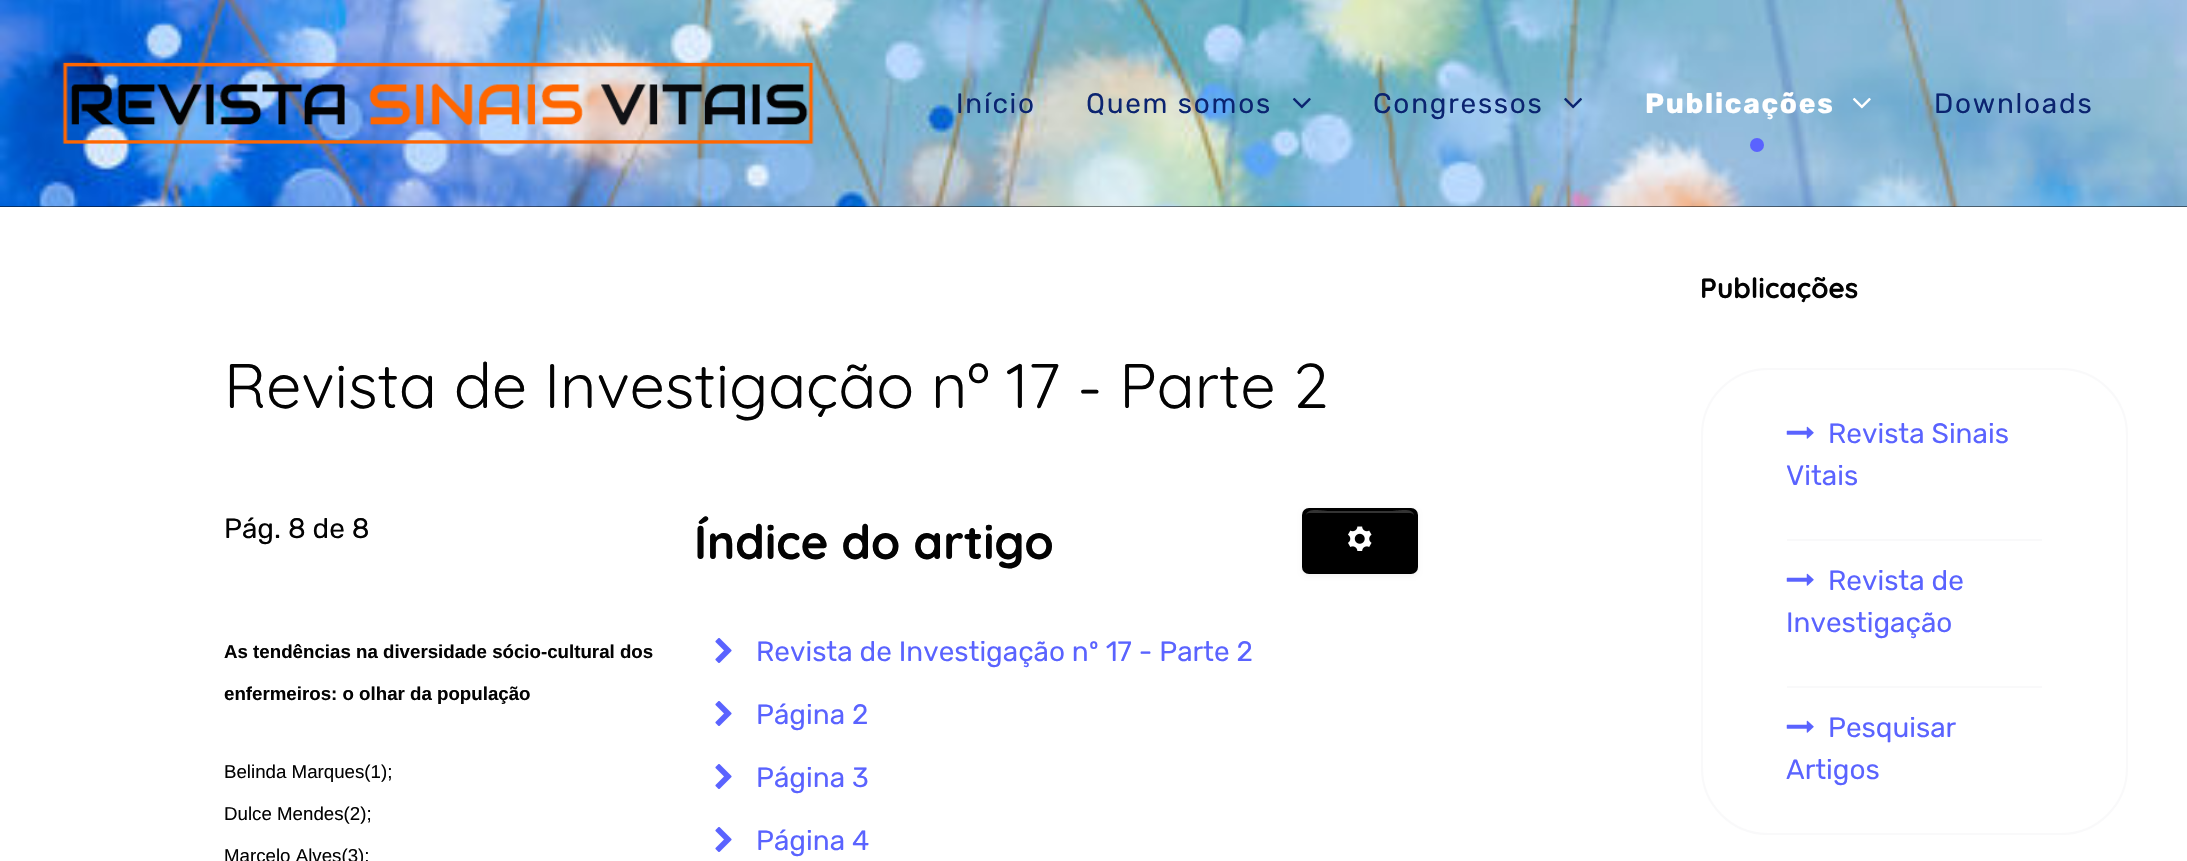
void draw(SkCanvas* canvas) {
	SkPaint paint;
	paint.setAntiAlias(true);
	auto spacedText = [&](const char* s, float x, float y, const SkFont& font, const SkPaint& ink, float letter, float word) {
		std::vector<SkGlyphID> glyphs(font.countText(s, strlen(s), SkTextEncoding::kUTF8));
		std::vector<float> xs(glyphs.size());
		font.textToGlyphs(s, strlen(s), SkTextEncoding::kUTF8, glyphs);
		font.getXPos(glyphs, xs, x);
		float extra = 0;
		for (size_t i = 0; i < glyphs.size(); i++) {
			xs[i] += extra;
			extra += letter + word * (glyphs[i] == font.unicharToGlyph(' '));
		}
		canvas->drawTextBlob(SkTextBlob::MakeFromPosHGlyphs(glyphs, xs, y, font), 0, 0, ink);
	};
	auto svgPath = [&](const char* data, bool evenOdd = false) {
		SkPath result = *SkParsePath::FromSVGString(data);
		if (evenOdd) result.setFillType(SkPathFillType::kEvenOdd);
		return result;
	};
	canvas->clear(0xffffffff);
	paint.setColor(0xff000000);
	canvas->drawRect(SkRect::MakeXYWH(0, 206, 2187, 1), paint);
	canvas->drawImageRect(SkImages::DeferredFromEncodedData(SkData::MakeFromFileName("img1.png")), SkRect::MakeXYWH(0, 0, 2187, 207), SkSamplingOptions());
	canvas->drawImageRect(SkImages::DeferredFromEncodedData(SkData::MakeFromFileName("img2.png")), SkRect::MakeXYWH(62, 62, 752, 82), SkSamplingOptions());
	SkFont f1(fontMgr->matchFamilyStyle("Rubik", SkFontStyle::Normal()), 28);
	f1.setSubpixel(true);
	paint.setColor(0xff0b2470);
	spacedText("Início", 956, 113, f1, paint, 1.75, 0);
	spacedText("Quem somos", 1086, 113, f1, paint, 1.75, 0);
	canvas->drawImageRect(SkImages::DeferredFromEncodedData(SkData::MakeFromFileName("img3.png")), SkRect::MakeXYWH(1292, 97, 19, 12), SkSamplingOptions());
	spacedText("Congressos", 1373, 113, f1, paint, 1.75, 0);
	canvas->drawImageRect(SkImages::DeferredFromEncodedData(SkData::MakeFromFileName("img4.png")), SkRect::MakeXYWH(1564, 97, 18, 12), SkSamplingOptions());
	SkFont f2(fontMgr->matchFamilyStyle("Rubik", SkFontStyle::Bold()), 28);
	f2.setSubpixel(true);
	paint.setColor(0xffffffff);
	spacedText("Publicações", 1645, 113, f2, paint, 1.75, 0);
	canvas->drawImageRect(SkImages::DeferredFromEncodedData(SkData::MakeFromFileName("img5.png")), SkRect::MakeXYWH(1852, 97, 19, 12), SkSamplingOptions());
	paint.setColor(0xff5a63ff);
	canvas->drawCircle(1757, 145, 7, paint);
	paint.setColor(0xff0b2470);
	spacedText("Downloads", 1934, 113, f1, paint, 1.75, 0);
	SkFont f3(fontMgr->matchFamilyStyle("Quicksand", SkFontStyle::Normal()), 63);
	f3.setSubpixel(true);
	paint.setColor(0xff030303);
	canvas->drawString("Revista de Investigação nº 17 - Parte 2", 224, 408, f3, paint);
	canvas->drawString("Pág. 8 de 8", 224, 538, f1, paint);
	SkFont f4(fontMgr->matchFamilyStyle("Liberation Sans", SkFontStyle::Bold()), 18.7);
	f4.setSubpixel(true);
	canvas->drawString("As tendências na diversidade sócio-cultural dos", 224, 658, f4, paint);
	canvas->drawString("enfermeiros: o olhar da população", 224, 700, f4, paint);
	SkFont f5(fontMgr->matchFamilyStyle("Liberation Sans", SkFontStyle::Normal()), 18.7);
	f5.setSubpixel(true);
	canvas->drawString("Belinda Marques(1);", 224, 778, f5, paint);
	canvas->drawString("Dulce Mendes(2);", 224, 820, f5, paint);
	canvas->drawString("Marcelo Alves(3);", 224, 862, f5, paint);
	SkFont f6(fontMgr->matchFamilyStyle("Quicksand", SkFontStyle::Bold()), 47.5);
	f6.setSubpixel(true);
	canvas->drawString("Índice do artigo", 694, 559, f6, paint);
	canvas->drawImageRect(SkImages::DeferredFromEncodedData(SkData::MakeFromFileName("img6.png")), SkRect::MakeXYWH(715, 638, 17, 25), SkSamplingOptions());
	paint.setColor(0xff5a63ff);
	canvas->drawString("Revista de Investigação nº 17 - Parte 2", 756, 661, f1, paint);
	canvas->drawImageRect(SkImages::DeferredFromEncodedData(SkData::MakeFromFileName("img6.png")), SkRect::MakeXYWH(715, 701, 17, 25), SkSamplingOptions());
	canvas->drawString("Página 2", 756, 724, f1, paint);
	canvas->drawImageRect(SkImages::DeferredFromEncodedData(SkData::MakeFromFileName("img6.png")), SkRect::MakeXYWH(715, 764, 17, 25), SkSamplingOptions());
	canvas->drawString("Página 3", 756, 787, f1, paint);
	canvas->drawImageRect(SkImages::DeferredFromEncodedData(SkData::MakeFromFileName("img6.png")), SkRect::MakeXYWH(715, 827, 17, 25), SkSamplingOptions());
	canvas->drawString("Página 4", 756, 850, f1, paint);
	paint.setColor(0x0d000000);
	paint.setMaskFilter(SkMaskFilter::MakeBlur(kNormal_SkBlurStyle, 2));
	canvas->drawRoundRect(SkRect::MakeXYWH(1302, 509, 116, 67), 7, 7, paint);
	paint.setMaskFilter(nullptr);
	paint.setColor(0xff000000);
	canvas->drawRoundRect(SkRect::MakeXYWH(1302, 508, 116, 66), 7, 7, paint);
	paint.setColor(0xff333333);
	canvas->drawPath(svgPath("M1309 513H1410C1412 513 1414 514 1414 516C1414 507 1397 511 1393 511H1327C1323 511 1306 507 1306 516C1306 514 1307 513 1309 513Z"), paint);
	canvas->drawImageRect(SkImages::DeferredFromEncodedData(SkData::MakeFromFileName("img7.png")), SkRect::MakeXYWH(1348, 526, 24, 25), SkSamplingOptions());
	SkFont f7(fontMgr->matchFamilyStyle("Quicksand", SkFontStyle::Bold()), 28);
	f7.setSubpixel(true);
	paint.setColor(0xff030303);
	canvas->drawString("Publicações", 1700, 298, f7, paint);
	paint.setStroke(true);
	paint.setStrokeWidth(2);
	paint.setColor(0xfff9f9fa);
	canvas->drawRoundRect(SkRect::MakeXYWH(1702, 369, 425, 465), 66, 66, paint);
	paint.setStroke(false);
	canvas->drawRect(SkRect::MakeXYWH(1787, 539, 255, 2), paint);
	canvas->drawImageRect(SkImages::DeferredFromEncodedData(SkData::MakeFromFileName("img8.png")), SkRect::MakeXYWH(1786, 426, 28, 13), SkSamplingOptions());
	paint.setColor(0xff5a63ff);
	canvas->drawString("Revista Sinais", 1828, 443, f1, paint);
	canvas->drawString("Vitais", 1786, 485, f1, paint);
	paint.setColor(0xfff9f9fa);
	canvas->drawRect(SkRect::MakeXYWH(1787, 686, 255, 2), paint);
	canvas->drawImageRect(SkImages::DeferredFromEncodedData(SkData::MakeFromFileName("img8.png")), SkRect::MakeXYWH(1786, 573, 28, 13), SkSamplingOptions());
	paint.setColor(0xff5a63ff);
	canvas->drawString("Revista de", 1828, 590, f1, paint);
	canvas->drawString("Investigação", 1786, 632, f1, paint);
	canvas->drawImageRect(SkImages::DeferredFromEncodedData(SkData::MakeFromFileName("img8.png")), SkRect::MakeXYWH(1786, 720, 28, 13), SkSamplingOptions());
	canvas->drawString("Pesquisar", 1828, 737, f1, paint);
	canvas->drawString("Artigos", 1786, 779, f1, paint);
}
